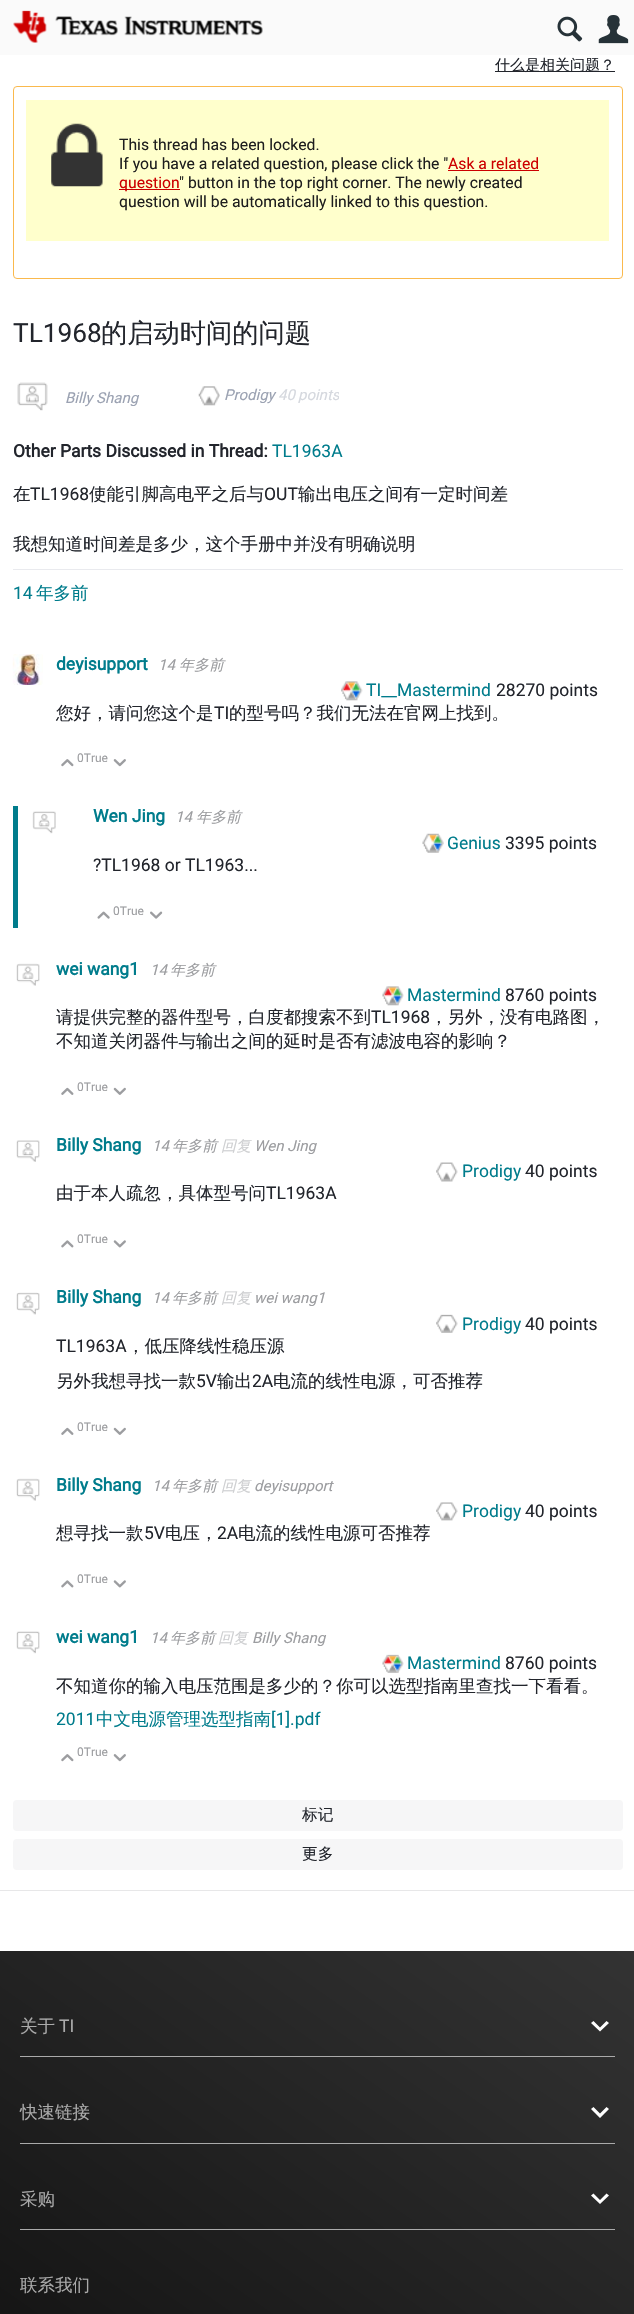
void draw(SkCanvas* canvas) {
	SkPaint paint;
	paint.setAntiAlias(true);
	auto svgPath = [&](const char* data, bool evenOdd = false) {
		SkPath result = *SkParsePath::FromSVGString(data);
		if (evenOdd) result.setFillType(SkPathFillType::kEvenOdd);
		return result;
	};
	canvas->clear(0xffffffff);
	paint.setColor(0xfffafafa);
	canvas->drawRect(SkRect::MakeXYWH(0, 0, 634, 55), paint);
	canvas->drawImageRect(SkImages::DeferredFromEncodedData(SkData::MakeFromFileName("img1.png")), SkRect::MakeXYWH(13, 10, 250, 33), SkSamplingOptions());
	canvas->drawImageRect(SkImages::DeferredFromEncodedData(SkData::MakeFromFileName("img2.png")), SkRect::MakeXYWH(557, 16, 26, 26), SkSamplingOptions());
	canvas->drawImageRect(SkImages::DeferredFromEncodedData(SkData::MakeFromFileName("img3.png")), SkRect::MakeXYWH(598, 15, 31, 29), SkSamplingOptions());
	paint.setColor(0xff22252c);
	canvas->drawRect(SkRect::MakeXYWH(495, 71, 120, 1), paint);
	SkFont f1(fontMgr->matchFamilyStyle("WenQuanYi Zen Hei", SkFontStyle(500, SkFontStyle::kNormal_Width, SkFontStyle::kUpright_Slant)), 15);
	f1.setSubpixel(true);
	canvas->drawString("什么是相关问题？", 495, 70, f1, paint);
	paint.setStroke(true);
	paint.setStrokeWidth(1);
	paint.setColor(0xfffab94d);
	canvas->drawRoundRect(SkRect::MakeXYWH(13.5, 86.5, 609, 192), 3.5, 3.5, paint);
	paint.setStroke(false);
	paint.setColor(0xffffffcc);
	canvas->drawRect(SkRect::MakeXYWH(26, 100, 583, 141), paint);
	canvas->drawImageRect(SkImages::DeferredFromEncodedData(SkData::MakeFromFileName("img4.png")), SkRect::MakeXYWH(51, 123, 52, 64), SkSamplingOptions());
	SkFont f2(fontMgr->matchFamilyStyle("Roboto", SkFontStyle::Normal()), 15.75);
	f2.setSubpixel(true);
	paint.setColor(0xff1e1e1e);
	canvas->drawString("This thread has been locked.", 119, 150, f2, paint);
	canvas->drawString("If you have a related question, please click the \"", 119, 169, f2, paint);
	paint.setColor(0xffcc0000);
	canvas->drawString("Ask a related", 448, 169, f2, paint);
	canvas->drawRect(SkRect::MakeXYWH(448, 170, 91, 1), paint);
	canvas->drawRect(SkRect::MakeXYWH(119, 189, 61, 1), paint);
	canvas->drawString("question", 119, 188, f2, paint);
	paint.setColor(0xff1e1e1e);
	canvas->drawString("\" button in the top right corner. The newly created", 179, 188, f2, paint);
	canvas->drawString("question will be automatically linked to this question.", 119, 207, f2, paint);
	SkFont f3(fontMgr->matchFamilyStyle("Roboto", SkFontStyle::Normal()), 26.25);
	f3.setSubpixel(true);
	paint.setColor(0xff22252c);
	canvas->drawString("TL1968", 13, 342, f3, paint);
	SkFont f4(fontMgr->matchFamilyStyle("WenQuanYi Zen Hei", SkFontStyle(500, SkFontStyle::kNormal_Width, SkFontStyle::kUpright_Slant)), 26.25);
	f4.setSubpixel(true);
	canvas->drawString("的启动时间的问题", 101, 342, f4, paint);
	canvas->drawImageRect(SkImages::DeferredFromEncodedData(SkData::MakeFromFileName("img5.png")), SkRect::MakeXYWH(17, 382, 31, 29), SkSamplingOptions());
	SkFont f5(fontMgr->matchFamilyStyle("Roboto", SkFontStyle::Italic()), 15);
	f5.setSubpixel(true);
	paint.setColor(0xff9ba2b2);
	canvas->drawString("Billy Shang", 65, 403, f5, paint);
	canvas->drawImageRect(SkImages::DeferredFromEncodedData(SkData::MakeFromFileName("img6.png")), SkRect::MakeXYWH(198, 386, 22, 20), SkSamplingOptions());
	canvas->drawString("Prodigy", 224, 400, f5, paint);
	paint.setColor(0xffd5d8de);
	canvas->drawString("40", 278, 400, f5, paint);
	canvas->save();
	canvas->clipRect(SkRect::MakeXYWH(13, 376, 326, 40));
	canvas->drawString("points", 298, 400, f5, paint);
	canvas->restore();
	paint.setColor(0xffe9eaee);
	canvas->drawRect(SkRect::MakeXYWH(13, 569, 610, 1), paint);
	SkFont f6(fontMgr->matchFamilyStyle("Roboto", SkFontStyle::Bold()), 17.5);
	f6.setSubpixel(true);
	paint.setColor(0xff22252c);
	canvas->drawString("Other Parts Discussed in Thread:", 13, 457, f6, paint);
	SkFont f7(fontMgr->matchFamilyStyle("Roboto", SkFontStyle::Normal()), 17.5);
	f7.setSubpixel(true);
	paint.setColor(0xff007c8c);
	canvas->drawString("TL1963A", 272, 457, f7, paint);
	SkFont f8(fontMgr->matchFamilyStyle("WenQuanYi Zen Hei", SkFontStyle(500, SkFontStyle::kNormal_Width, SkFontStyle::kUpright_Slant)), 17.5);
	f8.setSubpixel(true);
	paint.setColor(0xff22252c);
	canvas->drawString("在", 13, 500, f8, paint);
	canvas->drawString("TL1968", 30, 500, f7, paint);
	canvas->drawString("使能引脚高电平之后与", 89, 500, f8, paint);
	canvas->drawString("OUT", 264, 500, f7, paint);
	canvas->drawString("输出电压之间有一定时间差", 298, 500, f8, paint);
	canvas->drawString("我想知道时间差是多少，这个手册中并没有明确说明", 13, 550, f8, paint);
	paint.setColor(0xff007c8c);
	canvas->drawString("14", 13, 599, f7, paint);
	canvas->drawString("年多前", 36, 599, f8, paint);
	canvas->drawImageRect(SkImages::DeferredFromEncodedData(SkData::MakeFromFileName("img7.png")), SkRect::MakeXYWH(12, 654, 31, 31), SkSamplingOptions());
	canvas->drawString("deyisupport", 56, 670, f6, paint);
	paint.setColor(0xff9c9da0);
	canvas->drawString("14", 158, 670, f5, paint);
	SkFont f9(fontMgr->matchFamilyStyle("WenQuanYi Zen Hei", SkFontStyle(500, SkFontStyle::kNormal_Width, SkFontStyle::kItalic_Slant)), 15);
	f9.setSubpixel(true);
	canvas->drawString("年多前", 179, 670, f9, paint);
	canvas->drawImageRect(SkImages::DeferredFromEncodedData(SkData::MakeFromFileName("img8.png")), SkRect::MakeXYWH(341, 681, 22, 20), SkSamplingOptions());
	paint.setColor(0xff007c8c);
	canvas->drawString("TI__Mastermind", 366, 696, f7, paint);
	paint.setColor(0xff22252c);
	canvas->drawString("28270 points", 496, 696, f7, paint);
	canvas->drawString("您好，请问您这个是", 56, 719, f8, paint);
	canvas->drawString("TI", 214, 719, f7, paint);
	canvas->drawString("的型号吗？我们无法在官网上找到。", 229, 719, f8, paint);
	canvas->drawImageRect(SkImages::DeferredFromEncodedData(SkData::MakeFromFileName("img9.png")), SkRect::MakeXYWH(61, 759, 13, 8), SkSamplingOptions());
	SkFont f10(fontMgr->matchFamilyStyle("Roboto", SkFontStyle::Normal()), 12);
	f10.setSubpixel(true);
	paint.setColor(0xff9c9da0);
	canvas->drawString("0True", 77, 762, f10, paint);
	canvas->drawImageRect(SkImages::DeferredFromEncodedData(SkData::MakeFromFileName("img10.png")), SkRect::MakeXYWH(113, 759, 13, 8), SkSamplingOptions());
	paint.setColor(0xff007c8c);
	canvas->drawRect(SkRect::MakeXYWH(13, 806, 5, 122), paint);
	canvas->drawImageRect(SkImages::DeferredFromEncodedData(SkData::MakeFromFileName("img11.png")), SkRect::MakeXYWH(32, 811, 24, 23), SkSamplingOptions());
	canvas->drawString("Wen Jing", 93, 822, f6, paint);
	paint.setColor(0xff9c9da0);
	canvas->drawString("14", 175, 822, f5, paint);
	canvas->drawString("年多前", 196, 822, f9, paint);
	canvas->drawImageRect(SkImages::DeferredFromEncodedData(SkData::MakeFromFileName("img12.png")), SkRect::MakeXYWH(422, 833, 22, 20), SkSamplingOptions());
	paint.setColor(0xff007c8c);
	canvas->drawString("Genius", 447, 849, f7, paint);
	paint.setColor(0xff22252c);
	canvas->drawString("3395 points", 505, 849, f7, paint);
	canvas->drawString("?TL1968 or TL1963...", 93, 871, f7, paint);
	canvas->drawImageRect(SkImages::DeferredFromEncodedData(SkData::MakeFromFileName("img13.png")), SkRect::MakeXYWH(97, 911, 13, 8), SkSamplingOptions());
	paint.setColor(0xff9c9da0);
	canvas->drawString("0True", 113, 915, f10, paint);
	canvas->drawImageRect(SkImages::DeferredFromEncodedData(SkData::MakeFromFileName("img14.png")), SkRect::MakeXYWH(150, 911, 13, 8), SkSamplingOptions());
	canvas->drawImageRect(SkImages::DeferredFromEncodedData(SkData::MakeFromFileName("img15.png")), SkRect::MakeXYWH(16, 963, 24, 23), SkSamplingOptions());
	paint.setColor(0xff007c8c);
	canvas->drawString("wei wang1", 56, 975, f6, paint);
	paint.setColor(0xff9c9da0);
	canvas->drawString("14", 150, 975, f5, paint);
	canvas->drawString("年多前", 170, 975, f9, paint);
	canvas->drawImageRect(SkImages::DeferredFromEncodedData(SkData::MakeFromFileName("img16.png")), SkRect::MakeXYWH(382, 986, 22, 20), SkSamplingOptions());
	paint.setColor(0xff007c8c);
	canvas->drawString("Mastermind", 407, 1001, f7, paint);
	paint.setColor(0xff22252c);
	canvas->drawString("8760 points", 505, 1001, f7, paint);
	canvas->drawString("请提供完整的器件型号，白度都搜索不到", 56, 1023, f8, paint);
	canvas->drawString("TL1968", 371, 1023, f7, paint);
	canvas->drawString("，另外，没有电路图，", 430, 1023, f8, paint);
	canvas->drawString("不知道关闭器件与输出之间的延时是否有滤波电容的影响？", 56, 1047, f8, paint);
	canvas->drawImageRect(SkImages::DeferredFromEncodedData(SkData::MakeFromFileName("img17.png")), SkRect::MakeXYWH(61, 1087, 13, 8), SkSamplingOptions());
	paint.setColor(0xff9c9da0);
	canvas->drawString("0True", 77, 1091, f10, paint);
	canvas->drawImageRect(SkImages::DeferredFromEncodedData(SkData::MakeFromFileName("img18.png")), SkRect::MakeXYWH(113, 1087, 13, 8), SkSamplingOptions());
	canvas->drawImageRect(SkImages::DeferredFromEncodedData(SkData::MakeFromFileName("img19.png")), SkRect::MakeXYWH(16, 1140, 24, 22), SkSamplingOptions());
	paint.setColor(0xff007c8c);
	canvas->drawString("Billy Shang", 56, 1151, f6, paint);
	paint.setColor(0xff9c9da0);
	canvas->drawString("14", 152, 1151, f5, paint);
	canvas->drawString("年多前", 172, 1151, f9, paint);
	paint.setColor(0xffcecfd1);
	canvas->drawString("回复", 221, 1151, f9, paint);
	paint.setColor(0xff9c9da0);
	canvas->drawString("Wen Jing", 254, 1151, f5, paint);
	canvas->drawImageRect(SkImages::DeferredFromEncodedData(SkData::MakeFromFileName("img20.png")), SkRect::MakeXYWH(436, 1162, 22, 20), SkSamplingOptions());
	paint.setColor(0xff007c8c);
	canvas->drawString("Prodigy", 462, 1177, f7, paint);
	paint.setColor(0xff22252c);
	canvas->drawString("40 points", 525, 1177, f7, paint);
	canvas->drawString("由于本人疏忽，具体型号问", 56, 1199, f8, paint);
	canvas->drawString("TL1963A", 266, 1199, f7, paint);
	canvas->drawImageRect(SkImages::DeferredFromEncodedData(SkData::MakeFromFileName("img21.png")), SkRect::MakeXYWH(61, 1240, 13, 8), SkSamplingOptions());
	paint.setColor(0xff9c9da0);
	canvas->drawString("0True", 77, 1243, f10, paint);
	canvas->drawImageRect(SkImages::DeferredFromEncodedData(SkData::MakeFromFileName("img22.png")), SkRect::MakeXYWH(113, 1240, 13, 8), SkSamplingOptions());
	canvas->drawImageRect(SkImages::DeferredFromEncodedData(SkData::MakeFromFileName("img23.png")), SkRect::MakeXYWH(16, 1292, 24, 23), SkSamplingOptions());
	paint.setColor(0xff007c8c);
	canvas->drawString("Billy Shang", 56, 1303, f6, paint);
	paint.setColor(0xff9c9da0);
	canvas->drawString("14", 152, 1303, f5, paint);
	canvas->drawString("年多前", 172, 1303, f9, paint);
	paint.setColor(0xffcecfd1);
	canvas->drawString("回复", 221, 1303, f9, paint);
	paint.setColor(0xff9c9da0);
	canvas->drawString("wei wang1", 254, 1303, f5, paint);
	canvas->drawImageRect(SkImages::DeferredFromEncodedData(SkData::MakeFromFileName("img24.png")), SkRect::MakeXYWH(436, 1314, 22, 19), SkSamplingOptions());
	paint.setColor(0xff007c8c);
	canvas->drawString("Prodigy", 462, 1330, f7, paint);
	paint.setColor(0xff22252c);
	canvas->drawString("40 points", 525, 1330, f7, paint);
	canvas->drawString("TL1963A", 56, 1352, f7, paint);
	canvas->drawString("，低压降线性稳压源", 127, 1352, f8, paint);
	canvas->drawString("另外我想寻找一款", 56, 1387, f8, paint);
	canvas->drawString("5V", 196, 1387, f7, paint);
	canvas->drawString("输出", 217, 1387, f8, paint);
	canvas->drawString("2A", 252, 1387, f7, paint);
	canvas->drawString("电流的线性电源，可否推荐", 273, 1387, f8, paint);
	canvas->drawImageRect(SkImages::DeferredFromEncodedData(SkData::MakeFromFileName("img17.png")), SkRect::MakeXYWH(61, 1427, 13, 8), SkSamplingOptions());
	paint.setColor(0xff9c9da0);
	canvas->drawString("0True", 77, 1431, f10, paint);
	canvas->drawImageRect(SkImages::DeferredFromEncodedData(SkData::MakeFromFileName("img18.png")), SkRect::MakeXYWH(113, 1427, 13, 8), SkSamplingOptions());
	canvas->drawImageRect(SkImages::DeferredFromEncodedData(SkData::MakeFromFileName("img15.png")), SkRect::MakeXYWH(16, 1478, 24, 23), SkSamplingOptions());
	paint.setColor(0xff007c8c);
	canvas->drawString("Billy Shang", 56, 1491, f6, paint);
	paint.setColor(0xff9c9da0);
	canvas->drawString("14", 152, 1491, f5, paint);
	canvas->drawString("年多前", 172, 1491, f9, paint);
	paint.setColor(0xffcecfd1);
	canvas->drawString("回复", 221, 1491, f9, paint);
	paint.setColor(0xff9c9da0);
	canvas->drawString("deyisupport", 254, 1491, f5, paint);
	canvas->drawImageRect(SkImages::DeferredFromEncodedData(SkData::MakeFromFileName("img25.png")), SkRect::MakeXYWH(436, 1502, 22, 19), SkSamplingOptions());
	paint.setColor(0xff007c8c);
	canvas->drawString("Prodigy", 462, 1517, f7, paint);
	paint.setColor(0xff22252c);
	canvas->drawString("40 points", 525, 1517, f7, paint);
	canvas->drawString("想寻找一款", 56, 1539, f8, paint);
	canvas->drawString("5V", 144, 1539, f7, paint);
	canvas->drawString("电压，", 165, 1539, f8, paint);
	canvas->drawString("2A", 217, 1539, f7, paint);
	canvas->drawString("电流的线性电源可否推荐", 238, 1539, f8, paint);
	canvas->drawImageRect(SkImages::DeferredFromEncodedData(SkData::MakeFromFileName("img21.png")), SkRect::MakeXYWH(61, 1580, 13, 8), SkSamplingOptions());
	paint.setColor(0xff9c9da0);
	canvas->drawString("0True", 77, 1583, f10, paint);
	canvas->drawImageRect(SkImages::DeferredFromEncodedData(SkData::MakeFromFileName("img22.png")), SkRect::MakeXYWH(113, 1580, 13, 8), SkSamplingOptions());
	canvas->drawImageRect(SkImages::DeferredFromEncodedData(SkData::MakeFromFileName("img26.png")), SkRect::MakeXYWH(16, 1631, 24, 23), SkSamplingOptions());
	paint.setColor(0xff007c8c);
	canvas->drawString("wei wang1", 56, 1643, f6, paint);
	paint.setColor(0xff9c9da0);
	canvas->drawString("14", 150, 1643, f5, paint);
	canvas->drawString("年多前", 170, 1643, f9, paint);
	paint.setColor(0xffcecfd1);
	canvas->drawString("回复", 218, 1643, f9, paint);
	paint.setColor(0xff9c9da0);
	canvas->drawString("Billy Shang", 252, 1643, f5, paint);
	canvas->drawImageRect(SkImages::DeferredFromEncodedData(SkData::MakeFromFileName("img27.png")), SkRect::MakeXYWH(382, 1654, 22, 19), SkSamplingOptions());
	paint.setColor(0xff007c8c);
	canvas->drawString("Mastermind", 407, 1669, f7, paint);
	paint.setColor(0xff22252c);
	canvas->drawString("8760 points", 505, 1669, f7, paint);
	canvas->drawString("不知道你的输入电压范围是多少的？你可以选型指南里查找一下看看。", 56, 1692, f8, paint);
	paint.setColor(0xff007c8c);
	canvas->drawString("2011", 56, 1725, f7, paint);
	canvas->drawString("中文电源管理选型指南", 96, 1725, f8, paint);
	canvas->drawString("[1].pdf", 271, 1725, f7, paint);
	paint.setColor(0xff9c9da0);
	canvas->drawString("0True", 77, 1756, f10, paint);
	canvas->drawImageRect(SkImages::DeferredFromEncodedData(SkData::MakeFromFileName("img9.png")), SkRect::MakeXYWH(61, 1754, 13, 8), SkSamplingOptions());
	canvas->drawImageRect(SkImages::DeferredFromEncodedData(SkData::MakeFromFileName("img10.png")), SkRect::MakeXYWH(113, 1754, 13, 8), SkSamplingOptions());
	paint.setColor(0xfff6f6f7);
	canvas->drawRoundRect(SkRect::MakeXYWH(13, 1800, 610, 31), 4, 4, paint);
	SkFont f11(fontMgr->matchFamilyStyle("WenQuanYi Zen Hei", SkFontStyle(500, SkFontStyle::kNormal_Width, SkFontStyle::kUpright_Slant)), 15.75);
	f11.setSubpixel(true);
	paint.setColor(0xff22252c);
	canvas->drawString("标记", 302, 1820, f11, paint);
	paint.setColor(0xfff6f6f7);
	canvas->drawRoundRect(SkRect::MakeXYWH(13, 1839, 610, 31), 4, 4, paint);
	paint.setColor(0xff22252c);
	canvas->drawString("更多", 302, 1859, f11, paint);
	paint.setColor(0xffe7e7e8);
	canvas->drawRect(SkRect::MakeXYWH(0, 1890, 634, 1), paint);
	{
		const SkColor colors[] = {0xff000000, 0xff333333};
		const float stops[] = {0, 1};
		const SkPoint ends[] = {{-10, 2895}, {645, 1959}};
		paint.setShader(SkGradientShader::MakeLinear(ends, colors, stops, 2, SkTileMode::kClamp));
		paint.setAlpha(255);
	}
	canvas->drawRect(SkRect::MakeXYWH(0, 1951, 634, 363), paint);
	paint.setShader(nullptr);
	paint.setColor(0xffaaaaaa);
	canvas->drawRect(SkRect::MakeXYWH(20, 2056, 595, 1), paint);
	canvas->drawString("关于", 20, 2032, f8, paint);
	canvas->drawString("TI", 59, 2032, f7, paint);
	paint.setColor(0xffffffff);
	canvas->drawPath(svgPath("M609 2023L600 2031.5L591 2023L593.5 2021L600 2027.5L606.5 2021Z"), paint);
	paint.setColor(0xffaaaaaa);
	canvas->drawRect(SkRect::MakeXYWH(20, 2143, 595, 1), paint);
	canvas->drawString("快速链接", 20, 2118, f8, paint);
	paint.setColor(0xffffffff);
	canvas->drawPath(svgPath("M609 2109L600 2118L591 2109L593.5 2107L600 2113.5L606.5 2107Z"), paint);
	paint.setColor(0xffaaaaaa);
	canvas->drawRect(SkRect::MakeXYWH(20, 2229, 595, 1), paint);
	canvas->drawString("采购", 20, 2205, f8, paint);
	paint.setColor(0xffffffff);
	canvas->drawPath(svgPath("M609 2195.5L600 2204L591 2195.5L593.5 2193.5L600 2200L606.5 2193.5Z"), paint);
	paint.setColor(0xffaaaaaa);
	canvas->drawString("联系我们", 20, 2291, f8, paint);
}
